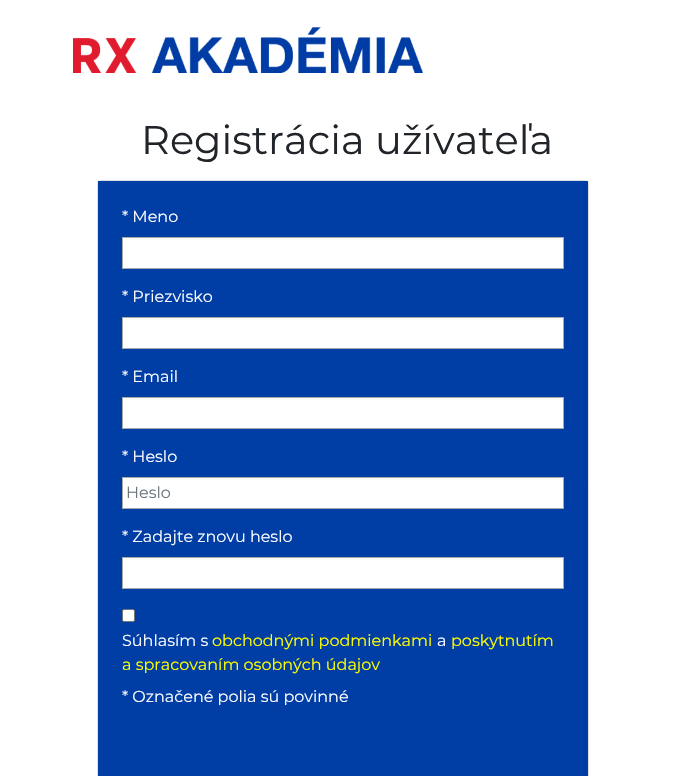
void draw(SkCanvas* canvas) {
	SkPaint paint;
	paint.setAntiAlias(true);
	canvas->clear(0xffffffff);
	canvas->drawImageRect(SkImages::DeferredFromEncodedData(SkData::MakeFromFileName("img1.png")), SkRect::MakeXYWH(73, 27, 350, 46), SkSamplingOptions());
	SkFont f1(fontMgr->matchFamilyStyle("Montserrat", SkFontStyle::Normal()), 40);
	f1.setSubpixel(true);
	paint.setColor(0xff212529);
	canvas->drawString("Registrácia užívateľa", 141, 154, f1, paint);
	paint.setStroke(true);
	paint.setStrokeWidth(1);
	paint.setColor(0xffdfdfdf);
	canvas->drawRoundRect(SkRect::MakeXYWH(97.5, 180.5, 491, 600), 3.5, 3.5, paint);
	paint.setStroke(false);
	paint.setColor(0xff003da5);
	canvas->drawRect(SkRect::MakeXYWH(98, 181, 490, 595), paint);
	SkFont f2(fontMgr->matchFamilyStyle("Montserrat", SkFontStyle::Normal()), 16);
	f2.setSubpixel(true);
	paint.setColor(0xffffffff);
	canvas->drawString("* Meno", 122, 222, f2, paint);
	canvas->drawRect(SkRect::MakeXYWH(122.5, 237.5, 441, 31), paint);
	paint.setStroke(true);
	paint.setColor(0xffa9a9a9);
	canvas->drawRect(SkRect::MakeXYWH(122.5, 237.5, 441, 31), paint);
	paint.setStroke(false);
	paint.setColor(0xffffffff);
	canvas->drawString("* Priezvisko", 122, 302, f2, paint);
	canvas->drawRect(SkRect::MakeXYWH(122.5, 317.5, 441, 31), paint);
	paint.setStroke(true);
	paint.setColor(0xffa9a9a9);
	canvas->drawRect(SkRect::MakeXYWH(122.5, 317.5, 441, 31), paint);
	paint.setStroke(false);
	paint.setColor(0xffffffff);
	canvas->drawString("* Email", 122, 382, f2, paint);
	canvas->drawRect(SkRect::MakeXYWH(122.5, 397.5, 441, 31), paint);
	paint.setStroke(true);
	paint.setColor(0xffa9a9a9);
	canvas->drawRect(SkRect::MakeXYWH(122.5, 397.5, 441, 31), paint);
	paint.setStroke(false);
	paint.setColor(0xffffffff);
	canvas->drawString("* Heslo", 122, 462, f2, paint);
	canvas->drawRect(SkRect::MakeXYWH(122.5, 477.5, 441, 31), paint);
	paint.setStroke(true);
	paint.setColor(0xffa9a9a9);
	canvas->drawRect(SkRect::MakeXYWH(122.5, 477.5, 441, 31), paint);
	paint.setStroke(false);
	paint.setColor(0xff6c757d);
	canvas->drawString("Heslo", 126, 498, f2, paint);
	paint.setColor(0xffffffff);
	canvas->drawString("* Zadajte znovu heslo", 122, 542, f2, paint);
	canvas->drawRect(SkRect::MakeXYWH(122.5, 557.5, 441, 31), paint);
	paint.setStroke(true);
	paint.setColor(0xffa9a9a9);
	canvas->drawRect(SkRect::MakeXYWH(122.5, 557.5, 441, 31), paint);
	paint.setStroke(false);
	paint.setColor(0xffffffff);
	canvas->drawRoundRect(SkRect::MakeXYWH(122.5, 609.5, 12, 12), 1.5, 1.5, paint);
	paint.setStroke(true);
	paint.setColor(0xff767676);
	canvas->drawRoundRect(SkRect::MakeXYWH(122.5, 609.5, 12, 12), 1.5, 1.5, paint);
	paint.setStroke(false);
	paint.setColor(0xffffffff);
	canvas->drawString("Súhlasím s", 122, 646, f2, paint);
	paint.setColor(0xffffff00);
	canvas->drawString("obchodnými podmienkami", 212, 646, f2, paint);
	paint.setColor(0xffffffff);
	canvas->drawString("a", 437, 646, f2, paint);
	paint.setColor(0xffffff00);
	canvas->drawString("poskytnutím", 451, 646, f2, paint);
	canvas->drawString("a spracovaním osobných údajov", 122, 670, f2, paint);
	paint.setColor(0xffffffff);
	canvas->drawString("* Označené polia sú povinné", 122, 702, f2, paint);
}
